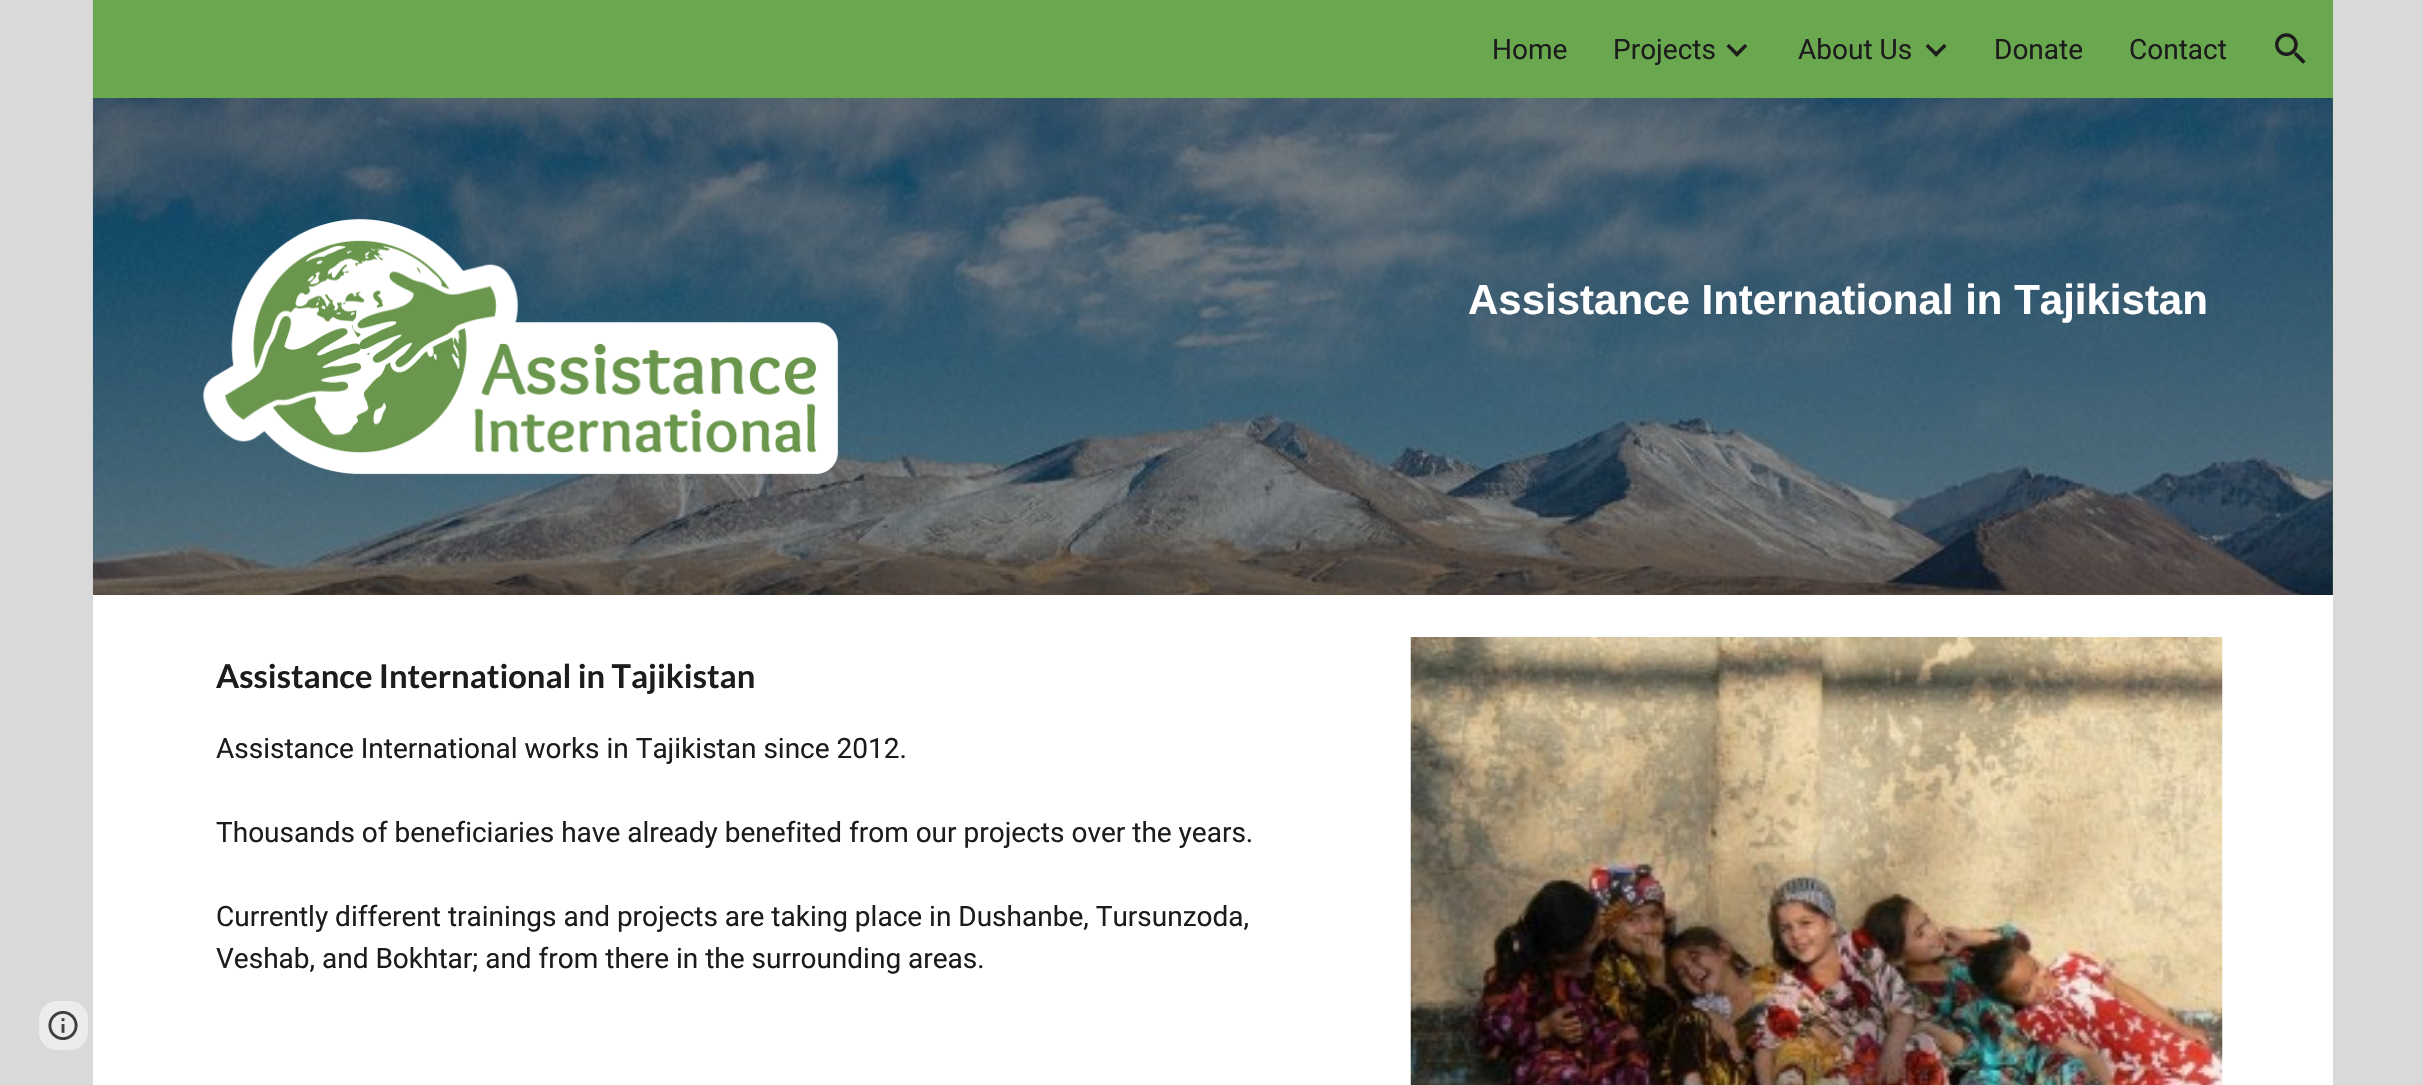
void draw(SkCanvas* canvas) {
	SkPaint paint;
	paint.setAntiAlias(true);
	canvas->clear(0xffd9d9d9);
	paint.setColor(0xff456438);
	canvas->drawRect(SkRect::MakeXYWH(2332, 98, 1, 497), paint);
	canvas->drawImageRect(SkImages::DeferredFromEncodedData(SkData::MakeFromFileName("img4.png")), SkRect::MakeXYWH(92, 0, 2241, 595), SkSamplingOptions());
	paint.setColor(0xff6aa84f);
	canvas->drawRect(SkRect::MakeXYWH(93, 0, 2240, 98), paint);
	SkFont f1(fontMgr->matchFamilyStyle("Roboto", SkFontStyle::Normal()), 28);
	f1.setSubpixel(true);
	paint.setColor(0xff1c1c1c);
	canvas->drawString("Home", 1492, 59, f1, paint);
	canvas->drawString("Projects", 1613, 59, f1, paint);
	canvas->drawImageRect(SkImages::DeferredFromEncodedData(SkData::MakeFromFileName("img1.png")), SkRect::MakeXYWH(1726, 44, 22, 13), SkSamplingOptions());
	canvas->drawString("About Us", 1798, 59, f1, paint);
	canvas->drawImageRect(SkImages::DeferredFromEncodedData(SkData::MakeFromFileName("img2.png")), SkRect::MakeXYWH(1925, 44, 22, 13), SkSamplingOptions());
	canvas->drawString("Donate", 1994, 59, f1, paint);
	canvas->drawString("Contact", 2129, 59, f1, paint);
	canvas->drawImageRect(SkImages::DeferredFromEncodedData(SkData::MakeFromFileName("img3.png")), SkRect::MakeXYWH(2275, 33, 31, 31), SkSamplingOptions());
	canvas->drawImageRect(SkImages::DeferredFromEncodedData(SkData::MakeFromFileName("img5.png")), SkRect::MakeXYWH(203, 219, 636, 256), SkSamplingOptions());
	SkFont f2(fontMgr->matchFamilyStyle("Liberation Sans", SkFontStyle::Bold()), 42);
	f2.setSubpixel(true);
	paint.setColor(0xffffffff);
	canvas->drawString("Assistance International in Tajikistan", 1468, 314, f2, paint);
	canvas->drawRect(SkRect::MakeXYWH(93, 595, 2240, 490), paint);
	SkFont f3(fontMgr->matchFamilyStyle("Lato", SkFontStyle::Bold()), 32.7);
	f3.setSubpixel(true);
	paint.setColor(0xff1c1c1c);
	canvas->drawString("Assistance International in Tajikistan", 216, 688, f3, paint);
	canvas->drawString("Assistance International works in Tajikistan since 2012.", 216, 758, f1, paint);
	canvas->drawString("Thousands of beneficiaries have already benefited from our projects over the years.", 216, 842, f1, paint);
	canvas->drawString("Currently different trainings and projects are taking place in Dushanbe, Tursunzoda,", 216, 926, f1, paint);
	canvas->drawString("Veshab, and Bokhtar; and from there in the surrounding areas.", 216, 968, f1, paint);
	canvas->drawImageRect(SkImages::DeferredFromEncodedData(SkData::MakeFromFileName("img6.png")), SkRect::MakeXYWH(1410, 637, 813, 448), SkSamplingOptions());
	paint.setColor(0xffececec);
	canvas->drawRoundRect(SkRect::MakeXYWH(39, 1001, 49, 49), 18, 18, paint);
	canvas->drawImageRect(SkImages::DeferredFromEncodedData(SkData::MakeFromFileName("img7.png")), SkRect::MakeXYWH(48, 1010, 30, 31), SkSamplingOptions());
}
